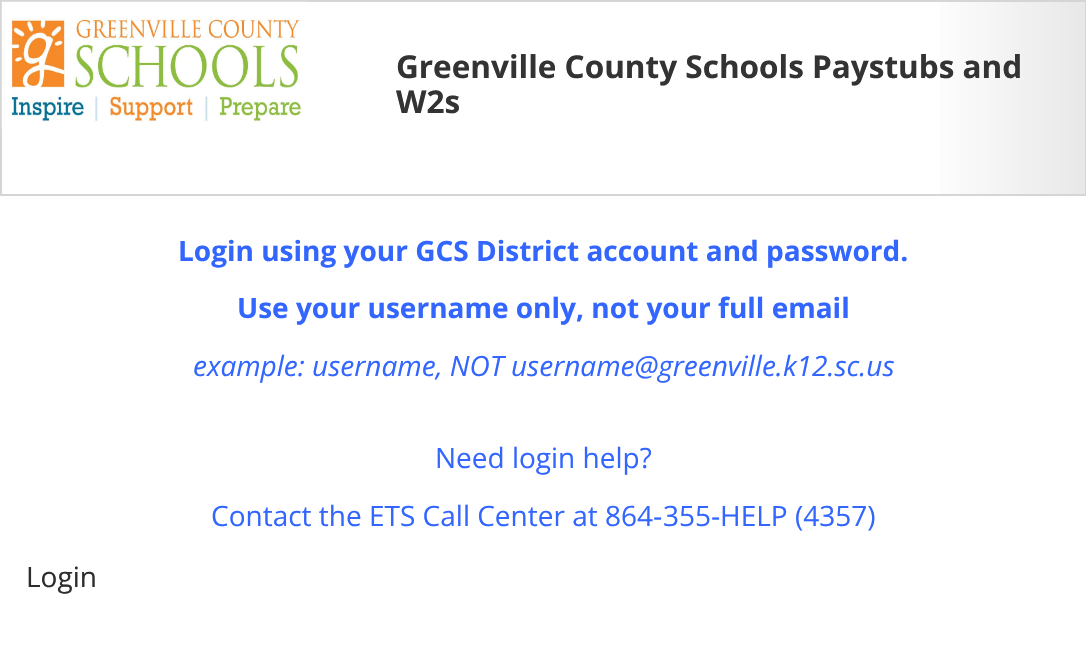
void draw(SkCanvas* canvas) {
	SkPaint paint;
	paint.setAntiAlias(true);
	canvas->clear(0xffffffff);
	{
		const SkColor colors[] = {0xffffffff, 0xffe8e8e8};
		const float stops[] = {0.85, 1};
		const SkPoint ends[] = {{1.8, 98}, {1085, 98}};
		paint.setShader(SkGradientShader::MakeLinear(ends, colors, stops, 2, SkTileMode::kClamp));
		paint.setAlpha(255);
	}
	canvas->drawRect(SkRect::MakeXYWH(940, 2, 145, 192), paint);
	paint.setStroke(true);
	paint.setStrokeWidth(2);
	paint.setShader(nullptr);
	paint.setColor(0xffd5d5d5);
	canvas->drawRect(SkRect::MakeXYWH(1, 1, 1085, 194), paint);
	canvas->drawImageRect(SkImages::DeferredFromEncodedData(SkData::MakeFromFileName("img1.png")), SkRect::MakeXYWH(1, 1, 307, 129), SkSamplingOptions());
	SkFont f1(fontMgr->matchFamilyStyle("Open Sans", SkFontStyle::Bold()), 31.5);
	f1.setSubpixel(true);
	paint.setStroke(false);
	paint.setColor(0xff333333);
	canvas->drawString("Greenville County Schools Paystubs and", 396, 78, f1, paint);
	canvas->drawString("W2s", 396, 113, f1, paint);
	SkFont f2(fontMgr->matchFamilyStyle("Open Sans", SkFontStyle::Bold()), 28);
	f2.setSubpixel(true);
	paint.setColor(0xff3366ff);
	canvas->drawString("Login using your GCS District account and password.", 178, 261, f2, paint);
	canvas->drawString("Use your username only, not your full email", 237, 318, f2, paint);
	SkFont f3(fontMgr->matchFamilyStyle("Open Sans", SkFontStyle::Italic()), 28);
	f3.setSubpixel(true);
	canvas->drawString("example: username, NOT username@greenville.k12.sc.us", 193, 376, f3, paint);
	SkFont f4(fontMgr->matchFamilyStyle("Open Sans", SkFontStyle::Normal()), 28);
	f4.setSubpixel(true);
	canvas->drawString("Need login help?", 435, 468, f4, paint);
	canvas->drawString("Contact the ETS Call Center at 864", 211, 526, f4, paint);
	SkFont f5(fontMgr->matchFamilyStyle("Liberation Sans", SkFontStyle::Normal()), 28);
	f5.setSubpixel(true);
	canvas->drawString("‐", 653, 526, f5, paint);
	canvas->drawString("355", 663, 526, f4, paint);
	canvas->drawString("‐", 711, 526, f5, paint);
	canvas->drawString("HELP (4357)", 720, 526, f4, paint);
	paint.setColor(0xff2d2d2d);
	canvas->drawString("Login", 26, 587, f4, paint);
}
